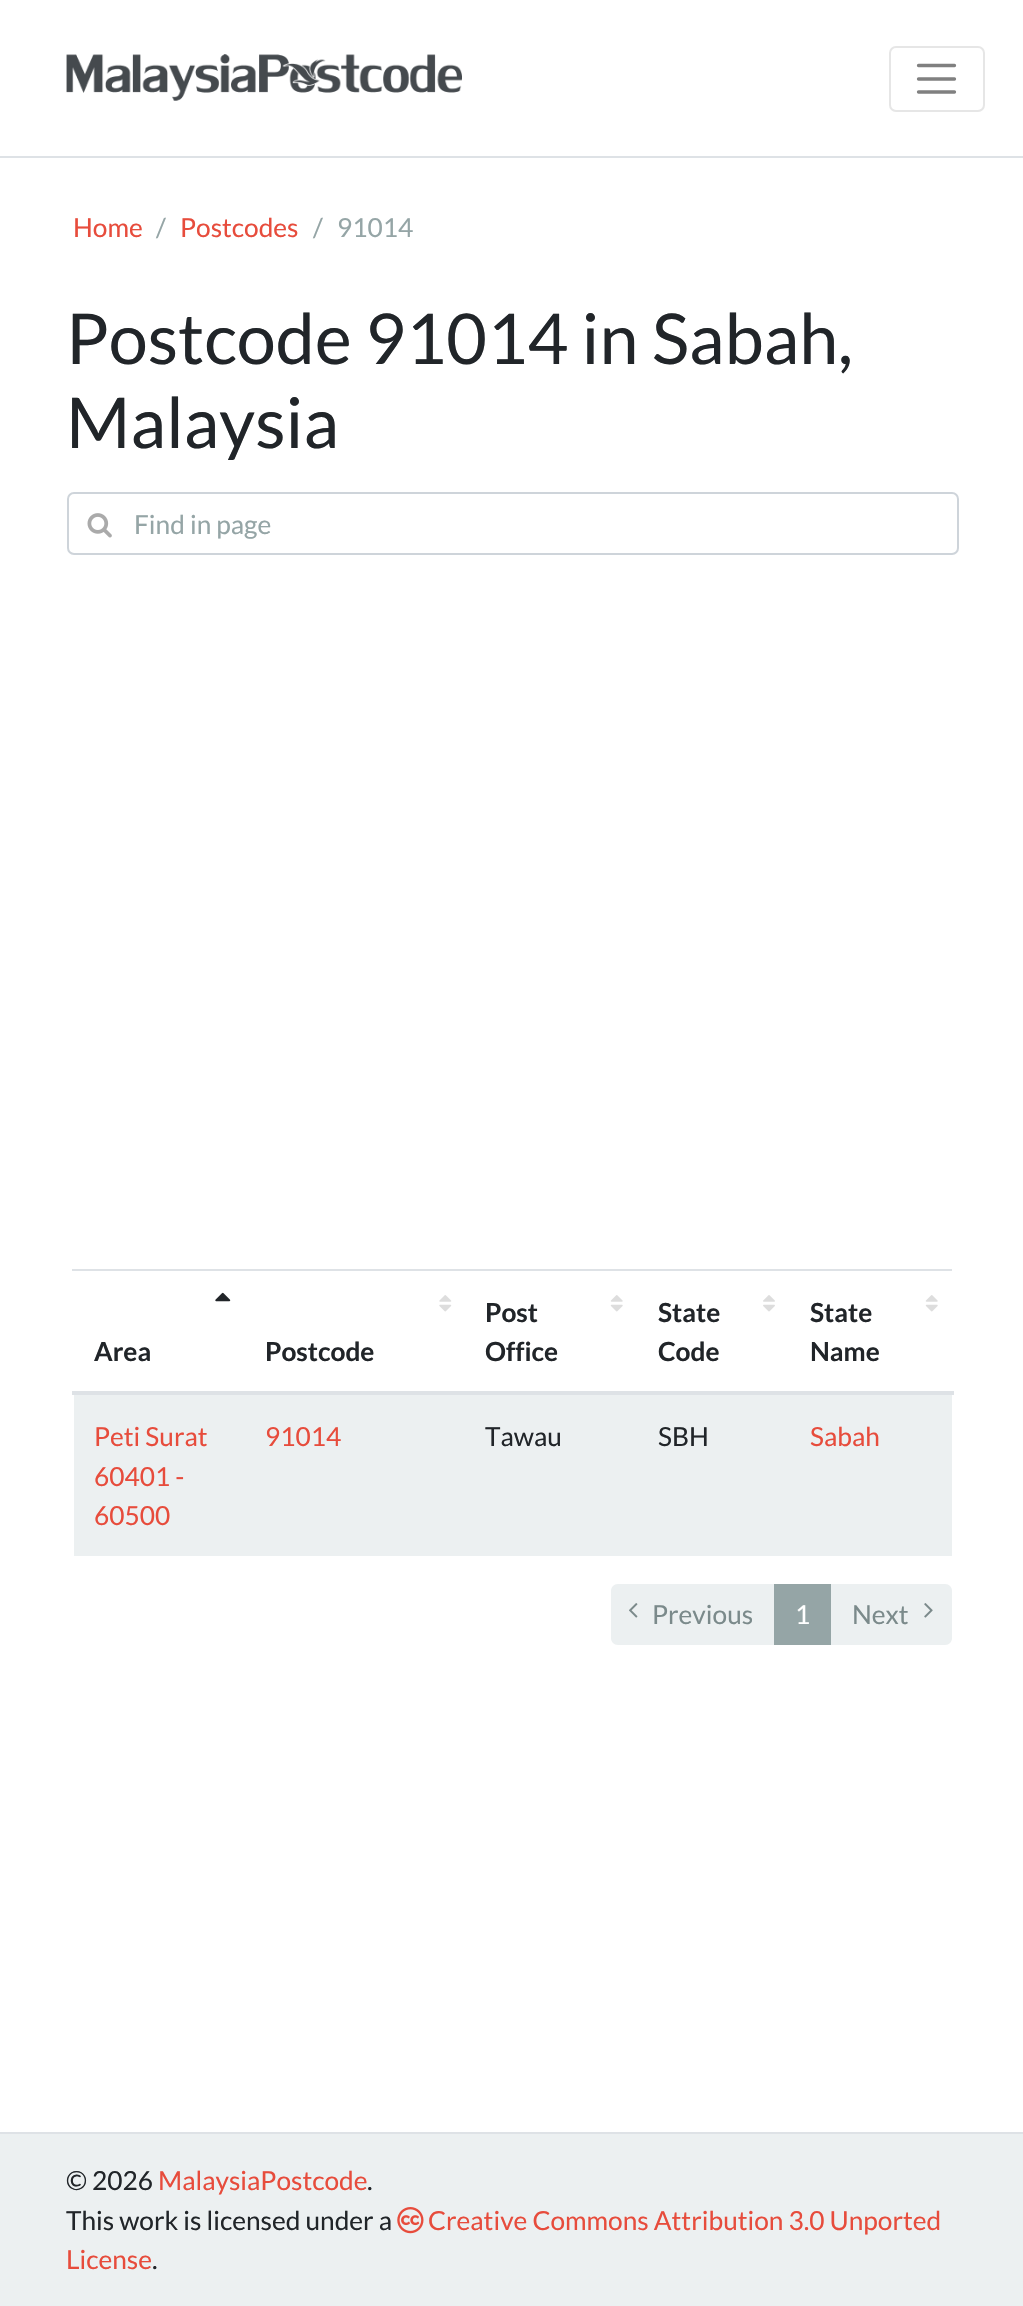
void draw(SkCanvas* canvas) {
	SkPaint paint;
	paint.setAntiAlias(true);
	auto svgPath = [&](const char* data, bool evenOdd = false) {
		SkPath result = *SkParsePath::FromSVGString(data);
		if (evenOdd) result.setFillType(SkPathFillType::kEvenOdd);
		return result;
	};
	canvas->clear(0xffffffff);
	paint.setColor(0xffdee2e6);
	canvas->drawRect(SkRect::MakeXYWH(0, 156, 1023, 2), paint);
	canvas->drawImageRect(SkImages::DeferredFromEncodedData(SkData::MakeFromFileName("img1.png")), SkRect::MakeXYWH(66, 54, 396, 47), SkSamplingOptions());
	paint.setStroke(true);
	paint.setStrokeWidth(2);
	paint.setColor(0xffe6e6e6);
	canvas->drawRoundRect(SkRect::MakeXYWH(890, 47, 94, 64), 6, 6, paint);
	paint.setStrokeWidth(3.3);
	paint.setStrokeCap(SkPaint::kRound_Cap);
	paint.setColor(0xff808080);
	canvas->drawPath(svgPath("M918.5 65.5H954.5M918.5 79H954.5M918.5 92H954.5"), paint);
	SkFont f1(fontMgr->matchFamilyStyle("Lato", SkFontStyle::Normal()), 26.25);
	f1.setSubpixel(true);
	paint.setStroke(false);
	paint.setColor(0xffe74c3c);
	canvas->drawString("Home", 73, 237, f1, paint);
	paint.setColor(0xff95a5a6);
	canvas->drawString("/", 156, 237, f1, paint);
	paint.setColor(0xffe74c3c);
	canvas->drawString("Postcodes", 180, 237, f1, paint);
	paint.setColor(0xff95a5a6);
	canvas->drawString("/", 313, 237, f1, paint);
	canvas->drawString("91014", 337, 237, f1, paint);
	SkFont f2(fontMgr->matchFamilyStyle("Lato", SkFontStyle::Normal()), 70);
	f2.setSubpixel(true);
	paint.setColor(0xff212529);
	canvas->drawString("Postcode 91014 in Sabah,", 66, 364, f2, paint);
	canvas->drawString("Malaysia", 66, 448, f2, paint);
	paint.setStroke(true);
	paint.setStrokeWidth(2);
	paint.setStrokeCap(SkPaint::kButt_Cap);
	paint.setColor(0xffced4da);
	canvas->drawRoundRect(SkRect::MakeXYWH(68, 493, 890, 61), 6, 6, paint);
	canvas->drawImageRect(SkImages::DeferredFromEncodedData(SkData::MakeFromFileName("img2.png")), SkRect::MakeXYWH(87, 513, 25, 25), SkSamplingOptions());
	paint.setStroke(false);
	paint.setColor(0xff95a5a6);
	canvas->drawString("Find in page", 134, 534, f1, paint);
	canvas->drawImageRect(SkImages::DeferredFromEncodedData(SkData::MakeFromFileName("img3.png")), SkRect::MakeXYWH(215, 1292, 16, 10), SkSamplingOptions());
	SkFont f3(fontMgr->matchFamilyStyle("Lato", SkFontStyle::Bold()), 26.25);
	f3.setSubpixel(true);
	paint.setColor(0xff212529);
	canvas->drawString("Area", 94, 1361, f3, paint);
	canvas->drawImageRect(SkImages::DeferredFromEncodedData(SkData::MakeFromFileName("img4.png")), SkRect::MakeXYWH(439, 1295, 13, 17), SkSamplingOptions());
	canvas->drawString("Postcode", 265, 1361, f3, paint);
	canvas->drawString("Post", 485, 1322, f3, paint);
	canvas->drawImageRect(SkImages::DeferredFromEncodedData(SkData::MakeFromFileName("img5.png")), SkRect::MakeXYWH(610, 1295, 13, 17), SkSamplingOptions());
	canvas->drawString("Office", 485, 1361, f3, paint);
	canvas->drawString("State", 658, 1322, f3, paint);
	canvas->drawImageRect(SkImages::DeferredFromEncodedData(SkData::MakeFromFileName("img6.png")), SkRect::MakeXYWH(763, 1295, 12, 17), SkSamplingOptions());
	canvas->drawString("Code", 658, 1361, f3, paint);
	paint.setColor(0xffdee2e6);
	canvas->drawRect(SkRect::MakeXYWH(72, 1269, 880, 2), paint);
	canvas->drawRect(SkRect::MakeXYWH(72, 1391, 882, 4), paint);
	paint.setColor(0xff212529);
	canvas->drawString("State", 810, 1322, f3, paint);
	canvas->drawImageRect(SkImages::DeferredFromEncodedData(SkData::MakeFromFileName("img5.png")), SkRect::MakeXYWH(925, 1295, 13, 17), SkSamplingOptions());
	canvas->drawString("Name", 810, 1361, f3, paint);
	paint.setColor(0xffecf0f1);
	canvas->drawRect(SkRect::MakeXYWH(74, 1395, 878, 161), paint);
	paint.setColor(0xffe74c3c);
	canvas->drawString("Peti Surat", 94, 1446, f1, paint);
	canvas->drawString("60401 -", 94, 1486, f1, paint);
	canvas->drawString("60500", 94, 1525, f1, paint);
	canvas->drawString("91014", 265, 1446, f1, paint);
	paint.setColor(0xff212529);
	canvas->drawString("Tawau", 485, 1446, f1, paint);
	canvas->drawString("SBH", 658, 1446, f1, paint);
	paint.setColor(0xffe74c3c);
	canvas->drawString("Sabah", 810, 1446, f1, paint);
	paint.setColor(0xffecf0f1);
	canvas->drawPath(svgPath("M618 1584H774V1645H618C614 1645 611 1642 611 1638V1591C611 1587 614 1584 618 1584Z"), paint);
	canvas->drawImageRect(SkImages::DeferredFromEncodedData(SkData::MakeFromFileName("img7.png")), SkRect::MakeXYWH(629, 1603, 9, 15), SkSamplingOptions());
	paint.setColor(0xff7b8a8b);
	canvas->drawString("Previous", 652, 1624, f1, paint);
	paint.setColor(0xff95a5a6);
	canvas->drawRect(SkRect::MakeXYWH(774, 1584, 57, 61), paint);
	paint.setColor(0xffffffff);
	canvas->drawString("1", 795, 1624, f1, paint);
	paint.setColor(0xffecf0f1);
	canvas->drawPath(svgPath("M831 1584H945C949 1584 952 1587 952 1591V1638C952 1642 949 1645 945 1645H831Z"), paint);
	paint.setColor(0xff7b8a8b);
	canvas->drawString("Next", 852, 1624, f1, paint);
	canvas->drawImageRect(SkImages::DeferredFromEncodedData(SkData::MakeFromFileName("img8.png")), SkRect::MakeXYWH(924, 1603, 9, 15), SkSamplingOptions());
	paint.setColor(0xffecf0f1);
	canvas->drawRect(SkRect::MakeXYWH(0, 2134, 1023, 172), paint);
	paint.setColor(0xffdee2e6);
	canvas->drawRect(SkRect::MakeXYWH(0, 2132, 1023, 2), paint);
	paint.setColor(0xff212529);
	canvas->drawString("© 2026", 66, 2190, f1, paint);
	paint.setColor(0xffe74c3c);
	canvas->drawString("MalaysiaPostcode", 158, 2190, f1, paint);
	paint.setColor(0xff212529);
	canvas->drawString(".", 367, 2190, f1, paint);
	canvas->drawString("This work is licensed under a", 66, 2230, f1, paint);
	canvas->drawImageRect(SkImages::DeferredFromEncodedData(SkData::MakeFromFileName("img9.png")), SkRect::MakeXYWH(397, 2207, 27, 27), SkSamplingOptions());
	paint.setColor(0xffe74c3c);
	canvas->drawString("Creative Commons Attribution 3.0 Unported", 428, 2230, f1, paint);
	canvas->drawString("License", 66, 2269, f1, paint);
	paint.setColor(0xff212529);
	canvas->drawString(".", 152, 2269, f1, paint);
}
